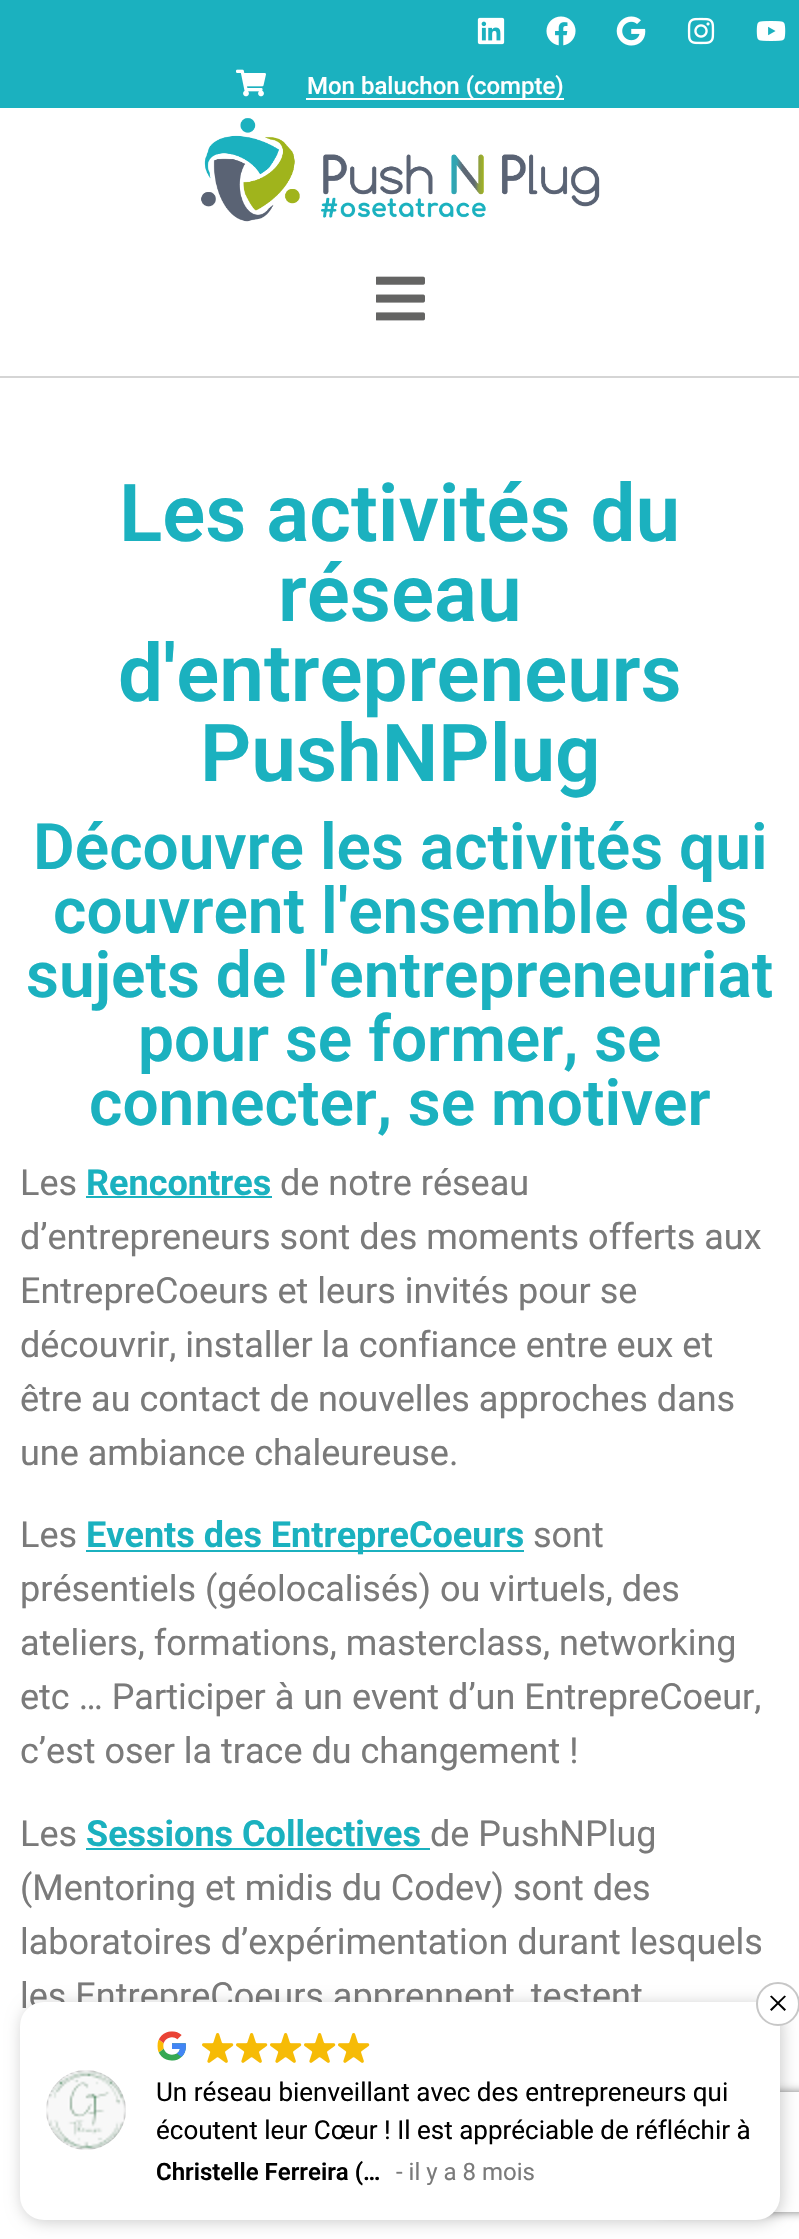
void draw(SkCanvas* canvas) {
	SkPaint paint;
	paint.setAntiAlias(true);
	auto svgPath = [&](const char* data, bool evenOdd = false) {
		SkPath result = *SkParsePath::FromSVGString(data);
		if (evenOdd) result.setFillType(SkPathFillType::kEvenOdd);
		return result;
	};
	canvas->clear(0xffffffff);
	paint.setColor(0xff1bb1bf);
	canvas->drawRect(SkRect::MakeXYWH(0, 0, 799, 108), paint);
	canvas->drawImageRect(SkImages::DeferredFromEncodedData(SkData::MakeFromFileName("img1.png")), SkRect::MakeXYWH(477, 17, 28, 28), SkSamplingOptions());
	canvas->drawImageRect(SkImages::DeferredFromEncodedData(SkData::MakeFromFileName("img2.png")), SkRect::MakeXYWH(546, 16, 30, 30), SkSamplingOptions());
	canvas->drawImageRect(SkImages::DeferredFromEncodedData(SkData::MakeFromFileName("img3.png")), SkRect::MakeXYWH(616, 16, 30, 30), SkSamplingOptions());
	canvas->drawImageRect(SkImages::DeferredFromEncodedData(SkData::MakeFromFileName("img4.png")), SkRect::MakeXYWH(687, 17, 28, 28), SkSamplingOptions());
	canvas->drawImageRect(SkImages::DeferredFromEncodedData(SkData::MakeFromFileName("img5.png")), SkRect::MakeXYWH(756, 21, 30, 20), SkSamplingOptions());
	canvas->drawImageRect(SkImages::DeferredFromEncodedData(SkData::MakeFromFileName("img6.png")), SkRect::MakeXYWH(236, 69, 30, 28), SkSamplingOptions());
	paint.setColor(0xffffffff);
	canvas->drawRect(SkRect::MakeXYWH(306, 98, 258, 2), paint);
	SkFont f1(fontMgr->matchFamilyStyle("Roboto", SkFontStyle(500, SkFontStyle::kNormal_Width, SkFontStyle::kUpright_Slant)), 24);
	f1.setSubpixel(true);
	canvas->drawString("Mon baluchon (compte)", 307, 94, f1, paint);
	canvas->drawImageRect(SkImages::DeferredFromEncodedData(SkData::MakeFromFileName("img7.png")), SkRect::MakeXYWH(201, 118, 399, 104), SkSamplingOptions());
	paint.setColor(0xffd5d5d5);
	canvas->drawRect(SkRect::MakeXYWH(0, 376, 799, 2), paint);
	canvas->drawImageRect(SkImages::DeferredFromEncodedData(SkData::MakeFromFileName("img8.png")), SkRect::MakeXYWH(376, 276, 49, 45), SkSamplingOptions());
	SkFont f2(fontMgr->matchFamilyStyle("Roboto", SkFontStyle(600, SkFontStyle::kNormal_Width, SkFontStyle::kUpright_Slant)), 80);
	f2.setSubpixel(true);
	paint.setColor(0xff1bb1bf);
	canvas->drawString("Les activités du", 119, 541, f2, paint);
	canvas->drawString("réseau", 278, 621, f2, paint);
	canvas->drawString("d'entrepreneurs", 118, 701, f2, paint);
	canvas->drawString("PushNPlug", 200, 781, f2, paint);
	SkFont f3(fontMgr->matchFamilyStyle("Roboto", SkFontStyle(600, SkFontStyle::kNormal_Width, SkFontStyle::kUpright_Slant)), 64);
	f3.setSubpixel(true);
	canvas->drawString("Découvre les activités qui", 33, 869, f3, paint);
	canvas->drawString("couvrent l'ensemble des", 53, 933, f3, paint);
	canvas->drawString("sujets de l'entrepreneuriat", 26, 997, f3, paint);
	canvas->drawString("pour se former, se", 138, 1061, f3, paint);
	canvas->drawString("connecter, se motiver", 89, 1125, f3, paint);
	SkFont f4(fontMgr->matchFamilyStyle("Roboto", SkFontStyle::Normal()), 36);
	f4.setSubpixel(true);
	paint.setColor(0xff7a7a7a);
	canvas->drawString("Les", 20, 1195, f4, paint);
	SkFont f5(fontMgr->matchFamilyStyle("Roboto", SkFontStyle::Bold()), 36);
	f5.setSubpixel(true);
	paint.setColor(0xff1bb1bf);
	canvas->drawString("Rencontres", 86, 1195, f5, paint);
	canvas->drawRect(SkRect::MakeXYWH(86, 1196, 186, 2), paint);
	paint.setColor(0xff7a7a7a);
	canvas->drawString("de notre réseau", 280, 1195, f4, paint);
	canvas->drawString("d’entrepreneurs sont des moments offerts aux", 20, 1249, f4, paint);
	canvas->drawString("EntrepreCoeurs et leurs invités pour se", 20, 1303, f4, paint);
	canvas->drawString("découvrir, installer la confiance entre eux et", 20, 1357, f4, paint);
	canvas->drawString("être au contact de nouvelles approches dans", 20, 1411, f4, paint);
	canvas->drawString("une ambiance chaleureuse.", 20, 1465, f4, paint);
	canvas->drawString("Les", 20, 1547, f4, paint);
	paint.setColor(0xff1bb1bf);
	canvas->drawRect(SkRect::MakeXYWH(86, 1550, 438, 2), paint);
	canvas->drawString("Events des EntrepreCoeurs", 86, 1547, f5, paint);
	paint.setColor(0xff7a7a7a);
	canvas->drawString("sont", 533, 1547, f4, paint);
	canvas->drawString("présentiels (géolocalisés) ou virtuels, des", 20, 1601, f4, paint);
	canvas->drawString("ateliers, formations, masterclass, networking", 20, 1655, f4, paint);
	canvas->drawString("etc … Participer à un event d’un EntrepreCoeur,", 20, 1709, f4, paint);
	canvas->drawString("c’est oser la trace du changement !", 20, 1763, f4, paint);
	canvas->drawString("Les", 20, 1846, f4, paint);
	paint.setColor(0xff1bb1bf);
	canvas->drawString("Sessions Collectives", 86, 1846, f5, paint);
	canvas->drawRect(SkRect::MakeXYWH(86, 1848, 344, 2), paint);
	paint.setColor(0xff7a7a7a);
	canvas->drawString("de PushNPlug", 430, 1846, f4, paint);
	canvas->drawString("(Mentoring et midis du Codev) sont des", 20, 1900, f4, paint);
	canvas->drawString("laboratoires d’expérimentation durant lesquels", 20, 1954, f4, paint);
	canvas->drawString("les EntrepreCoeurs apprennent, testent", 20, 2008, f4, paint);
	canvas->save();
	canvas->clipPath(svgPath("M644 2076H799V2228H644ZM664 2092H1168C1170 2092 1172 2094 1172 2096V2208C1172 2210 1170 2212 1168 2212H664C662 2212 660 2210 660 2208V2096C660 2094 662 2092 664 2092Z", true), true);
	paint.setColor(0xff808080);
	paint.setMaskFilter(SkMaskFilter::MakeBlur(kNormal_SkBlurStyle, 5));
	canvas->drawRoundRect(SkRect::MakeXYWH(660, 2092, 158, 120), 4, 4, paint);
	paint.setMaskFilter(nullptr);
	canvas->restore();
	paint.setColor(0x33000000);
	paint.setMaskFilter(SkMaskFilter::MakeBlur(kNormal_SkBlurStyle, 8));
	canvas->drawRoundRect(SkRect::MakeXYWH(22, 2004, 760, 218), 24, 24, paint);
	paint.setMaskFilter(nullptr);
	paint.setColor(0xffffffff);
	canvas->drawRoundRect(SkRect::MakeXYWH(20, 2002, 760, 218), 24, 24, paint);
	canvas->drawCircle(778, 2004, 21, paint);
	paint.setStroke(true);
	paint.setStrokeWidth(2);
	paint.setColor(0xffc7c7c7);
	canvas->drawCircle(778, 2004, 21, paint);
	paint.setStroke(false);
	paint.setColor(0xff000000);
	canvas->drawPath(svgPath("M771.5 1995.5L786 2009.5L784.5 2011L770 1996.5Z"), paint);
	canvas->drawPath(svgPath("M770 2009.5L784.5 1995.5L786 1996.5L771.5 2011Z"), paint);
	canvas->drawImageRect(SkImages::DeferredFromEncodedData(SkData::MakeFromFileName("img9.png")), SkRect::MakeXYWH(46, 2070, 80, 80), SkSamplingOptions());
	canvas->drawImageRect(SkImages::DeferredFromEncodedData(SkData::MakeFromFileName("img10.png")), SkRect::MakeXYWH(157, 2031, 29, 30), SkSamplingOptions());
	canvas->drawImageRect(SkImages::DeferredFromEncodedData(SkData::MakeFromFileName("img11.png")), SkRect::MakeXYWH(202, 2033, 32, 30), SkSamplingOptions());
	canvas->drawImageRect(SkImages::DeferredFromEncodedData(SkData::MakeFromFileName("img11.png")), SkRect::MakeXYWH(236, 2033, 32, 30), SkSamplingOptions());
	canvas->drawImageRect(SkImages::DeferredFromEncodedData(SkData::MakeFromFileName("img11.png")), SkRect::MakeXYWH(270, 2033, 32, 30), SkSamplingOptions());
	canvas->drawImageRect(SkImages::DeferredFromEncodedData(SkData::MakeFromFileName("img11.png")), SkRect::MakeXYWH(304, 2033, 32, 30), SkSamplingOptions());
	canvas->drawImageRect(SkImages::DeferredFromEncodedData(SkData::MakeFromFileName("img11.png")), SkRect::MakeXYWH(338, 2033, 32, 30), SkSamplingOptions());
	SkFont f6(fontMgr->matchFamilyStyle("Roboto", SkFontStyle::Normal()), 26);
	f6.setSubpixel(true);
	canvas->drawString("Un réseau bienveillant avec des entrepreneurs qui", 156, 2101, f6, paint);
	canvas->drawString("écoutent leur Cœur ! Il est appréciable de réfléchir à", 156, 2139, f6, paint);
	SkFont f7(fontMgr->matchFamilyStyle("Roboto", SkFontStyle(600, SkFontStyle::kNormal_Width, SkFontStyle::kUpright_Slant)), 24);
	f7.setSubpixel(true);
	canvas->drawString("Christelle Ferreira (…", 156, 2180, f7, paint);
	SkFont f8(fontMgr->matchFamilyStyle("Roboto", SkFontStyle::Normal()), 24);
	f8.setSubpixel(true);
	paint.setColor(0xff7a7a7a);
	canvas->drawString("- il y a 8 mois", 396, 2180, f8, paint);
}
